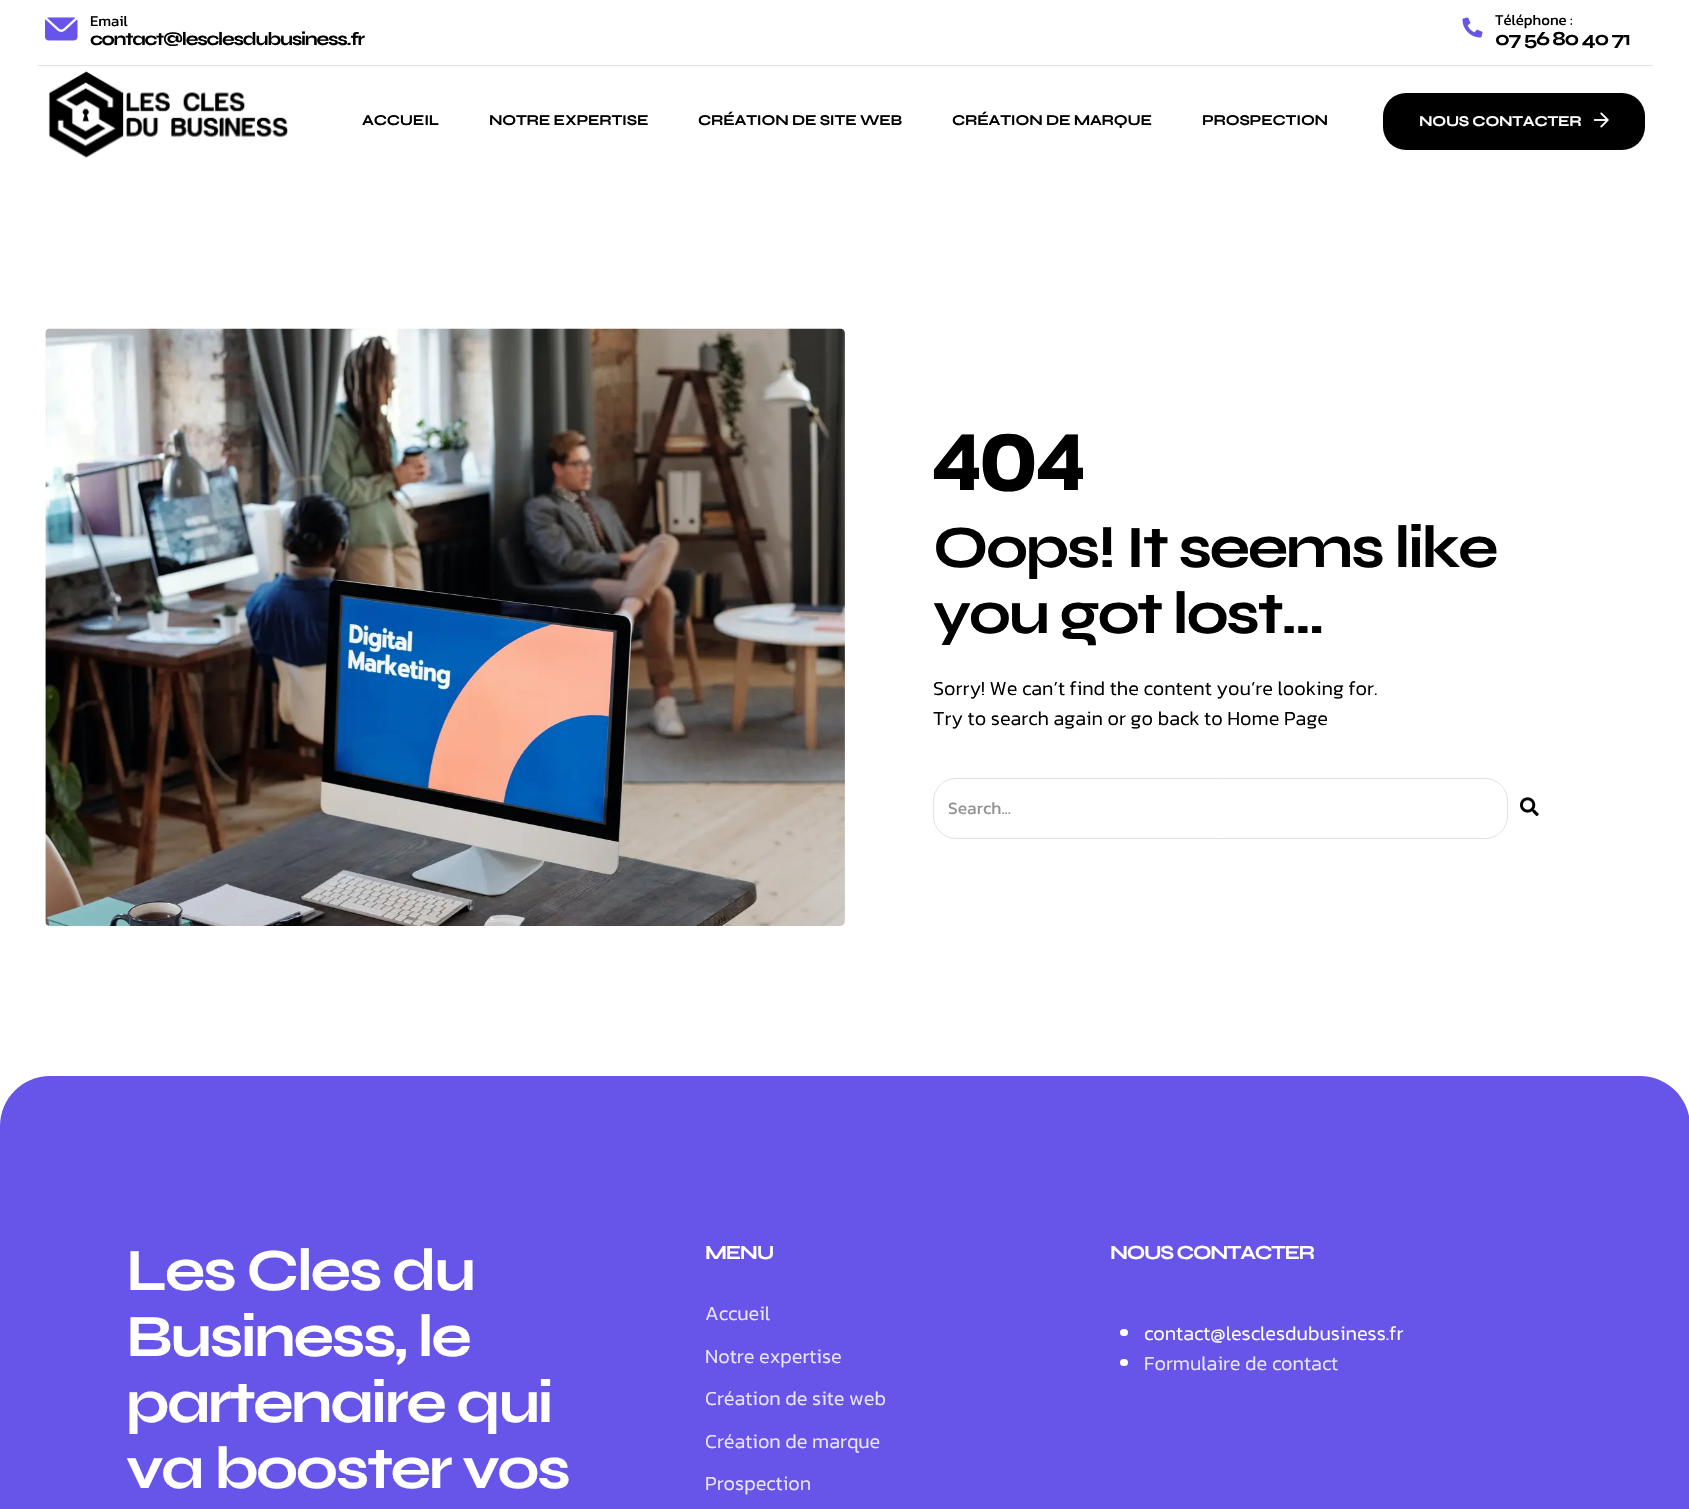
void draw(SkCanvas* canvas) {
	SkPaint paint;
	paint.setAntiAlias(true);
	auto spacedText = [&](const char* s, float x, float y, const SkFont& font, const SkPaint& ink, float letter, float word) {
		std::vector<SkGlyphID> glyphs(font.countText(s, strlen(s), SkTextEncoding::kUTF8));
		std::vector<float> xs(glyphs.size());
		font.textToGlyphs(s, strlen(s), SkTextEncoding::kUTF8, glyphs);
		font.getXPos(glyphs, xs, x);
		float extra = 0;
		for (size_t i = 0; i < glyphs.size(); i++) {
			xs[i] += extra;
			extra += letter + word * (glyphs[i] == font.unicharToGlyph(' '));
		}
		canvas->drawTextBlob(SkTextBlob::MakeFromPosHGlyphs(glyphs, xs, y, font), 0, 0, ink);
	};
	auto svgPath = [&](const char* data, bool evenOdd = false) {
		SkPath result = *SkParsePath::FromSVGString(data);
		if (evenOdd) result.setFillType(SkPathFillType::kEvenOdd);
		return result;
	};
	canvas->clear(0xffffffff);
	canvas->drawImageRect(SkImages::DeferredFromEncodedData(SkData::MakeFromFileName("img1.png")), SkRect::MakeXYWH(45, 17, 33, 24), SkSamplingOptions());
	SkFont f1(fontMgr->matchFamilyStyle("Kanit", SkFontStyle::Normal()), 15);
	f1.setSubpixel(true);
	paint.setColor(0xff000000);
	canvas->drawString("Email", 90, 26, f1, paint);
	SkFont f2(fontMgr->matchFamilyStyle("Syne", SkFontStyle::Bold()), 18.75);
	f2.setSubpixel(true);
	spacedText("contact@lesclesdubusiness.fr", 90, 45, f2, paint, -1.25, 0);
	canvas->drawImageRect(SkImages::DeferredFromEncodedData(SkData::MakeFromFileName("img2.png")), SkRect::MakeXYWH(1462, 17, 21, 21), SkSamplingOptions());
	canvas->drawString("Téléphone :", 1495, 25, f1, paint);
	SkFont f3(fontMgr->matchFamilyStyle("Syne", SkFontStyle::Bold()), 20);
	f3.setSubpixel(true);
	spacedText("07 56 80 40 71", 1495, 45, f3, paint, -1.25, 0);
	paint.setColor(0xffe2e2e2);
	canvas->drawRect(SkRect::MakeXYWH(38, 65, 1615, 1), paint);
	canvas->drawImageRect(SkImages::DeferredFromEncodedData(SkData::MakeFromFileName("img3.png")), SkRect::MakeXYWH(48, 71, 240, 87), SkSamplingOptions());
	SkFont f4(fontMgr->matchFamilyStyle("Syne", SkFontStyle::Bold()), 15);
	f4.setSubpixel(true);
	paint.setColor(0xff000000);
	spacedText("ACCUEIL", 362, 125, f4, paint, -0.2, 0);
	spacedText("NOTRE EXPERTISE", 489, 125, f4, paint, -0.2, 0);
	spacedText("CRÉATION DE SITE WEB", 698, 125, f4, paint, -0.2, 0);
	spacedText("CRÉATION DE MARQUE", 952, 125, f4, paint, -0.2, 0);
	spacedText("PROSPECTION", 1202, 125, f4, paint, -0.2, 0);
	canvas->drawRoundRect(SkRect::MakeXYWH(1383, 93, 262, 57), 23, 23, paint);
	paint.setColor(0xffffffff);
	spacedText("NOUS CONTACTER", 1419, 126, f4, paint, -0.25, 0);
	canvas->drawImageRect(SkImages::DeferredFromEncodedData(SkData::MakeFromFileName("img4.png")), SkRect::MakeXYWH(1593, 112, 16, 16), SkSamplingOptions());
	canvas->drawImageRect(SkImages::DeferredFromEncodedData(SkData::MakeFromFileName("img5.png")), SkRect::MakeXYWH(45, 328, 800, 598), SkSamplingOptions());
	SkFont f5(fontMgr->matchFamilyStyle("Kanit", SkFontStyle(600, SkFontStyle::kNormal_Width, SkFontStyle::kUpright_Slant)), 86);
	f5.setSubpixel(true);
	paint.setColor(0xff000000);
	canvas->drawString("404", 933, 490, f5, paint);
	SkFont f6(fontMgr->matchFamilyStyle("Syne", SkFontStyle::Bold()), 60);
	f6.setSubpixel(true);
	spacedText("Oops! It seems like", 933, 567, f6, paint, -2.5, 0);
	spacedText("you got lost...", 933, 633, f6, paint, -2.5, 0);
	SkFont f7(fontMgr->matchFamilyStyle("Kanit", SkFontStyle(300, SkFontStyle::kNormal_Width, SkFontStyle::kUpright_Slant)), 20);
	f7.setSubpixel(true);
	canvas->drawString("Sorry! We can’t find the content you’re looking for.", 933, 695, f7, paint);
	canvas->drawString("Try to search again or go back to Home Page", 933, 725, f7, paint);
	paint.setStroke(true);
	paint.setStrokeWidth(1);
	paint.setColor(0xffe2e2e2);
	canvas->drawRoundRect(SkRect::MakeXYWH(933.5, 778.5, 574, 60), 22.5, 22.5, paint);
	SkFont f8(fontMgr->matchFamilyStyle("Kanit", SkFontStyle::Normal()), 17.5);
	f8.setSubpixel(true);
	paint.setStroke(false);
	paint.setColor(0xff949494);
	canvas->drawString("Search...", 948, 814, f8, paint);
	canvas->drawImageRect(SkImages::DeferredFromEncodedData(SkData::MakeFromFileName("img6.png")), SkRect::MakeXYWH(1520, 797, 19, 19), SkSamplingOptions());
	paint.setColor(0xff6754e9);
	canvas->drawPath(svgPath("M50 1076H1640C1667.5 1076 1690 1098.5 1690 1126V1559H0V1126C0 1098.5 22.5 1076 50 1076Z"), paint);
	paint.setColor(0xffffffff);
	spacedText("Les Cles du", 126, 1290, f6, paint, -2.5, 0);
	spacedText("Business, le", 126, 1356, f6, paint, -2.5, 0);
	spacedText("partenaire qui", 126, 1422, f6, paint, -2.5, 0);
	spacedText("va booster vos", 126, 1488, f6, paint, -2.5, 0);
	spacedText("MENU", 705, 1259, f3, paint, -1.25, 0);
	paint.setColor(0xffe9e5ff);
	canvas->drawString("Accueil", 705, 1320, f7, paint);
	canvas->drawString("Notre expertise", 705, 1363, f7, paint);
	canvas->drawString("Création de site web", 705, 1405, f7, paint);
	canvas->drawString("Création de marque", 705, 1448, f7, paint);
	canvas->drawString("Prospection", 705, 1490, f7, paint);
	paint.setColor(0xffffffff);
	spacedText("NOUS CONTACTER", 1110, 1259, f3, paint, -1.25, 0);
	canvas->drawRoundRect(SkRect::MakeXYWH(1120, 1329, 8, 7), 3.5, 3.5, paint);
	canvas->drawString("contact@lesclesdubusiness.fr", 1144, 1340, f7, paint);
	canvas->drawRoundRect(SkRect::MakeXYWH(1120, 1359, 8, 7), 3.5, 3.5, paint);
	paint.setColor(0xffe9e5ff);
	canvas->drawString("Formulaire de contact", 1144, 1370, f7, paint);
}
